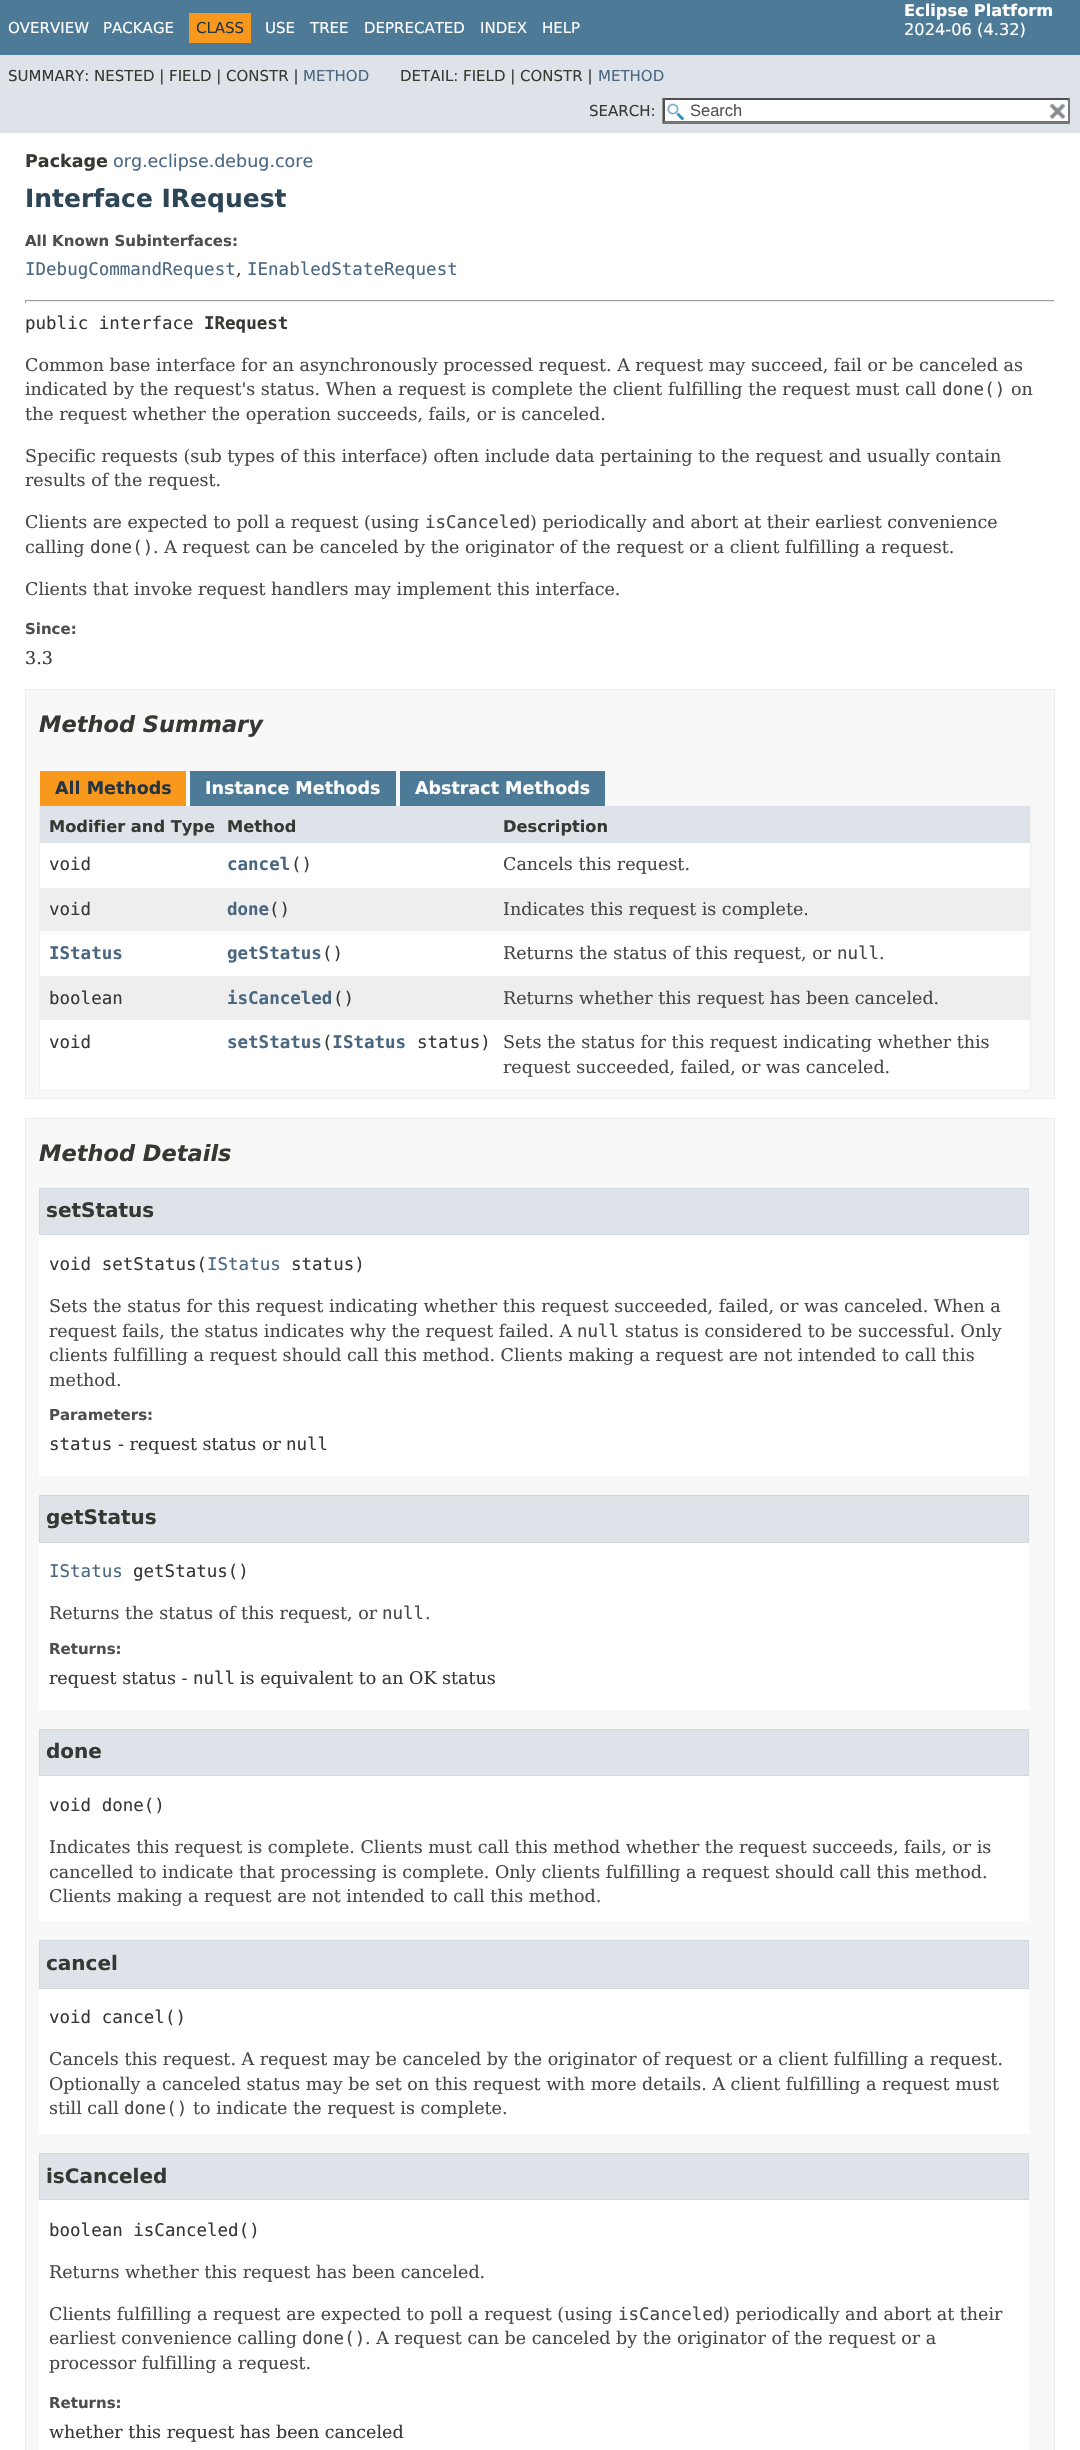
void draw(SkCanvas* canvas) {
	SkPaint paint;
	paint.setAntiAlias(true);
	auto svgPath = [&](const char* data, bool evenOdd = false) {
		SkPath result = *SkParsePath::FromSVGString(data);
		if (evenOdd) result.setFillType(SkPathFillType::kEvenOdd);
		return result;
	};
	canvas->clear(0xffffffff);
	paint.setColor(0xff4d7a97);
	canvas->drawRect(SkRect::MakeXYWH(0, 0, 1080, 55), paint);
	SkFont f1(fontMgr->matchFamilyStyle("DejaVu Sans", SkFontStyle::Normal()), 15);
	f1.setSubpixel(true);
	paint.setColor(0xffffffff);
	canvas->drawString("OVERVIEW", 8, 33, f1, paint);
	canvas->drawString("PACKAGE", 103, 33, f1, paint);
	paint.setColor(0xfff8981d);
	canvas->drawRect(SkRect::MakeXYWH(189, 13, 62, 30), paint);
	paint.setColor(0xff253441);
	canvas->drawString("CLASS", 196, 33, f1, paint);
	paint.setColor(0xffffffff);
	canvas->drawString("USE", 265, 33, f1, paint);
	canvas->drawString("TREE", 310, 33, f1, paint);
	canvas->drawString("DEPRECATED", 364, 33, f1, paint);
	canvas->drawString("INDEX", 480, 33, f1, paint);
	canvas->drawString("HELP", 542, 33, f1, paint);
	SkFont f2(fontMgr->matchFamilyStyle("DejaVu Sans", SkFontStyle::Bold()), 16.25);
	f2.setSubpixel(true);
	canvas->drawString("Eclipse Platform", 904, 16, f2, paint);
	SkFont f3(fontMgr->matchFamilyStyle("DejaVu Sans", SkFontStyle::Normal()), 16.25);
	f3.setSubpixel(true);
	canvas->drawString("2024-06 (4.32)", 904, 35, f3, paint);
	paint.setColor(0xffdee3e9);
	canvas->drawRect(SkRect::MakeXYWH(0, 55, 1080, 78), paint);
	paint.setColor(0xff353833);
	canvas->drawString("SUMMARY: NESTED | FIELD | CONSTR |", 8, 81, f1, paint);
	paint.setColor(0xff4a6782);
	canvas->drawString("METHOD", 303, 81, f1, paint);
	paint.setColor(0xff353833);
	canvas->drawString("DETAIL: FIELD | CONSTR |", 400, 81, f1, paint);
	paint.setColor(0xff4a6782);
	canvas->drawString("METHOD", 598, 81, f1, paint);
	paint.setColor(0xff353833);
	canvas->drawString("SEARCH:", 589, 116, f1, paint);
	paint.setColor(0xffffffff);
	canvas->drawRect(SkRect::MakeXYWH(663, 98, 407, 26), paint);
	canvas->drawImageRect(SkImages::DeferredFromEncodedData(SkData::MakeFromFileName("img1.png")), SkRect::MakeXYWH(667, 103, 17, 17), SkSamplingOptions());
	paint.setColor(0xff4f4f4f);
	canvas->drawPath(svgPath("M662 98H1070L1068 100H665Z"), paint);
	paint.setColor(0xff767676);
	canvas->drawPath(svgPath("M1070 97.5V124L1067.5 121V100Z"), paint);
	canvas->drawPath(svgPath("M1070 124H662L665 121H1068Z"), paint);
	paint.setColor(0xff4f4f4f);
	canvas->drawPath(svgPath("M662.5 124V97.5L665 100V121Z"), paint);
	SkFont f4(fontMgr->matchFamilyStyle("Liberation Sans", SkFontStyle::Normal()), 16.5);
	f4.setSubpixel(true);
	paint.setColor(0xff545454);
	canvas->drawString("Search", 690, 116, f4, paint);
	paint.setColor(0xffffffff);
	canvas->drawRect(SkRect::MakeXYWH(1067, 101, 1, 20), paint);
	canvas->drawImageRect(SkImages::DeferredFromEncodedData(SkData::MakeFromFileName("img2.png")), SkRect::MakeXYWH(1049, 103, 17, 16), SkSamplingOptions());
	SkFont f5(fontMgr->matchFamilyStyle("DejaVu Sans", SkFontStyle::Bold()), 17.5);
	f5.setSubpixel(true);
	paint.setColor(0xff353833);
	canvas->drawString("Package", 25, 167, f5, paint);
	SkFont f6(fontMgr->matchFamilyStyle("DejaVu Sans", SkFontStyle::Normal()), 17.5);
	f6.setSubpixel(true);
	paint.setColor(0xff4a6782);
	canvas->drawString("org.eclipse.debug.core", 113, 167, f6, paint);
	SkFont f7(fontMgr->matchFamilyStyle("DejaVu Sans", SkFontStyle::Bold()), 25);
	f7.setSubpixel(true);
	paint.setColor(0xff2c4557);
	canvas->drawString("Interface IRequest", 25, 207, f7, paint);
	SkFont f8(fontMgr->matchFamilyStyle("DejaVu Sans", SkFontStyle::Bold()), 15);
	f8.setSubpixel(true);
	paint.setColor(0xff4e4e4e);
	canvas->drawString("All Known Subinterfaces:", 25, 246, f8, paint);
	SkFont f9(fontMgr->matchFamilyStyle("DejaVu Sans Mono", SkFontStyle::Normal()), 17.5);
	f9.setSubpixel(true);
	paint.setColor(0xff4a6782);
	canvas->drawString("IDebugCommandRequest", 25, 275, f9, paint);
	SkFont f10(fontMgr->matchFamilyStyle("DejaVu Serif", SkFontStyle::Normal()), 17.5);
	f10.setSubpixel(true);
	paint.setColor(0xff353833);
	canvas->drawString(",", 236, 275, f10, paint);
	paint.setColor(0xff4a6782);
	canvas->drawString("IEnabledStateRequest", 247, 275, f9, paint);
	paint.setColor(0xff9f9f9f);
	canvas->drawRect(SkRect::MakeXYWH(25, 300, 1030, 1), paint);
	paint.setColor(0xffeeeeee);
	canvas->drawRect(SkRect::MakeXYWH(1054, 300, 1, 3), paint);
	canvas->drawRect(SkRect::MakeXYWH(25, 301, 1030, 1), paint);
	paint.setColor(0xff9f9f9f);
	canvas->drawRect(SkRect::MakeXYWH(25, 300, 1, 3), paint);
	paint.setColor(0xff353833);
	canvas->drawString("public interface", 25, 329, f9, paint);
	SkFont f11(fontMgr->matchFamilyStyle("DejaVu Sans Mono", SkFontStyle::Bold()), 17.5);
	f11.setSubpixel(true);
	canvas->drawString("IRequest", 204, 329, f11, paint);
	paint.setColor(0xff474747);
	canvas->drawString("Common base interface for an asynchronously processed request. A request may succeed, fail or be canceled as", 25, 371, f10, paint);
	canvas->drawString("indicated by the request's status. When a request is complete the client fulfilling the request must call", 25, 395, f10, paint);
	canvas->drawString("done()", 942, 395, f9, paint);
	canvas->drawString("on", 1011, 395, f10, paint);
	canvas->drawString("the request whether the operation succeeds, fails, or is canceled.", 25, 420, f10, paint);
	canvas->drawString("Specific requests (sub types of this interface) often include data pertaining to the request and usually contain", 25, 462, f10, paint);
	canvas->drawString("results of the request.", 25, 486, f10, paint);
	canvas->drawString("Clients are expected to poll a request (using", 25, 528, f10, paint);
	canvas->drawString("isCanceled", 425, 528, f9, paint);
	canvas->drawString(") periodically and abort at their earliest convenience", 530, 528, f10, paint);
	canvas->drawString("calling", 25, 553, f10, paint);
	canvas->drawString("done()", 90, 553, f9, paint);
	canvas->drawString(". A request can be canceled by the originator of the request or a client fulfilling a request.", 153, 553, f10, paint);
	canvas->drawString("Clients that invoke request handlers may implement this interface.", 25, 595, f10, paint);
	paint.setColor(0xff4e4e4e);
	canvas->drawString("Since:", 25, 634, f8, paint);
	paint.setColor(0xff353833);
	canvas->drawString("3.3", 25, 664, f10, paint);
	paint.setColor(0xfff8f8f8);
	canvas->drawRect(SkRect::MakeXYWH(25.5, 689.5, 1029, 409), paint);
	paint.setStroke(true);
	paint.setStrokeWidth(1);
	paint.setColor(0xffededed);
	canvas->drawRect(SkRect::MakeXYWH(25.5, 689.5, 1029, 409), paint);
	SkFont f12(fontMgr->matchFamilyStyle("DejaVu Sans", SkFontStyle::BoldItalic()), 22.5);
	f12.setSubpixel(true);
	paint.setStroke(false);
	paint.setColor(0xff353833);
	canvas->drawString("Method Summary", 39, 732, f12, paint);
	paint.setColor(0xfff8981d);
	canvas->drawRect(SkRect::MakeXYWH(40, 771, 146, 35), paint);
	paint.setColor(0xff253441);
	canvas->drawString("All Methods", 55, 794, f5, paint);
	paint.setColor(0xff4d7a97);
	canvas->drawRect(SkRect::MakeXYWH(190, 771, 206, 35), paint);
	paint.setColor(0xffffffff);
	canvas->drawString("Instance Methods", 205, 794, f5, paint);
	paint.setColor(0xff4d7a97);
	canvas->drawRect(SkRect::MakeXYWH(400, 771, 205, 35), paint);
	paint.setColor(0xffffffff);
	canvas->drawString("Abstract Methods", 415, 794, f5, paint);
	paint.setColor(0xffeeeeee);
	canvas->drawRect(SkRect::MakeXYWH(1030, 806, 1, 285), paint);
	canvas->drawRect(SkRect::MakeXYWH(39, 1090, 992, 1), paint);
	canvas->drawRect(SkRect::MakeXYWH(39, 806, 1, 285), paint);
	paint.setColor(0xffdee3e9);
	canvas->drawRect(SkRect::MakeXYWH(40, 806, 455, 37), paint);
	paint.setColor(0xff353833);
	canvas->drawString("Modifier and Type", 49, 832, f2, paint);
	canvas->drawString("Method", 227, 832, f2, paint);
	paint.setColor(0xffdee3e9);
	canvas->drawRect(SkRect::MakeXYWH(495, 806, 535, 37), paint);
	paint.setColor(0xff353833);
	canvas->drawString("Description", 503, 832, f2, paint);
	paint.setColor(0xffffffff);
	canvas->drawRect(SkRect::MakeXYWH(40, 843, 455, 45), paint);
	paint.setColor(0xff353833);
	canvas->drawString("void", 49, 870, f9, paint);
	paint.setColor(0xff4a6782);
	canvas->drawString("cancel", 227, 870, f11, paint);
	paint.setColor(0xff353833);
	canvas->drawString("()", 291, 870, f9, paint);
	paint.setColor(0xffffffff);
	canvas->drawRect(SkRect::MakeXYWH(495, 843, 535, 45), paint);
	paint.setColor(0xff474747);
	canvas->drawString("Cancels this request.", 503, 870, f10, paint);
	paint.setColor(0xffeeeeef);
	canvas->drawRect(SkRect::MakeXYWH(40, 888, 455, 43), paint);
	paint.setColor(0xff353833);
	canvas->drawString("void", 49, 915, f9, paint);
	paint.setColor(0xff4a6782);
	canvas->drawString("done", 227, 915, f11, paint);
	paint.setColor(0xff353833);
	canvas->drawString("()", 269, 915, f9, paint);
	paint.setColor(0xffeeeeef);
	canvas->drawRect(SkRect::MakeXYWH(495, 888, 535, 43), paint);
	paint.setColor(0xff474747);
	canvas->drawString("Indicates this request is complete.", 503, 915, f10, paint);
	paint.setColor(0xffffffff);
	canvas->drawRect(SkRect::MakeXYWH(40, 931, 455, 45), paint);
	paint.setColor(0xff4a6782);
	canvas->drawString("IStatus", 49, 959, f11, paint);
	canvas->drawString("getStatus", 227, 959, f11, paint);
	paint.setColor(0xff353833);
	canvas->drawString("()", 322, 959, f9, paint);
	paint.setColor(0xffffffff);
	canvas->drawRect(SkRect::MakeXYWH(495, 931, 535, 45), paint);
	paint.setColor(0xff474747);
	canvas->drawString("Returns the status of this request, or", 503, 959, f10, paint);
	canvas->drawString("null", 837, 959, f9, paint);
	canvas->drawString(".", 879, 959, f10, paint);
	paint.setColor(0xffeeeeef);
	canvas->drawRect(SkRect::MakeXYWH(40, 976, 455, 44), paint);
	paint.setColor(0xff353833);
	canvas->drawString("boolean", 49, 1004, f9, paint);
	paint.setColor(0xff4a6782);
	canvas->drawString("isCanceled", 227, 1004, f11, paint);
	paint.setColor(0xff353833);
	canvas->drawString("()", 333, 1004, f9, paint);
	paint.setColor(0xffeeeeef);
	canvas->drawRect(SkRect::MakeXYWH(495, 976, 535, 44), paint);
	paint.setColor(0xff474747);
	canvas->drawString("Returns whether this request has been canceled.", 503, 1004, f10, paint);
	paint.setColor(0xffffffff);
	canvas->drawRect(SkRect::MakeXYWH(40, 1020, 455, 70), paint);
	paint.setColor(0xff353833);
	canvas->drawString("void", 49, 1048, f9, paint);
	paint.setColor(0xff4a6782);
	canvas->drawString("setStatus IStatus", 227, 1048, f11, paint);
	paint.setColor(0xff353833);
	canvas->drawString("(", 322, 1048, f9, paint);
	canvas->drawString("status)", 417, 1048, f9, paint);
	paint.setColor(0xffffffff);
	canvas->drawRect(SkRect::MakeXYWH(495, 1020, 535, 70), paint);
	paint.setColor(0xff474747);
	canvas->drawString("Sets the status for this request indicating whether this", 503, 1048, f10, paint);
	canvas->drawString("request succeeded, failed, or was canceled.", 503, 1073, f10, paint);
	paint.setColor(0xfff8f8f8);
	canvas->drawRect(SkRect::MakeXYWH(25.5, 1118.5, 1029, 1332), paint);
	paint.setStroke(true);
	paint.setColor(0xffededed);
	canvas->drawRect(SkRect::MakeXYWH(25.5, 1118.5, 1029, 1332), paint);
	paint.setStroke(false);
	paint.setColor(0xff353833);
	canvas->drawString("Method Details", 39, 1161, f12, paint);
	paint.setColor(0xffffffff);
	canvas->drawRect(SkRect::MakeXYWH(39, 1235, 990, 241), paint);
	paint.setColor(0xffdee3e9);
	canvas->drawRect(SkRect::MakeXYWH(39.5, 1188.5, 989, 46), paint);
	paint.setStroke(true);
	paint.setColor(0xffd0d9e0);
	canvas->drawRect(SkRect::MakeXYWH(39.5, 1188.5, 989, 46), paint);
	SkFont f13(fontMgr->matchFamilyStyle("DejaVu Sans", SkFontStyle::Bold()), 20);
	f13.setSubpixel(true);
	paint.setStroke(false);
	paint.setColor(0xff353833);
	canvas->drawString("setStatus", 46, 1217, f13, paint);
	canvas->drawString("void setStatus(", 49, 1270, f9, paint);
	paint.setColor(0xff4a6782);
	canvas->drawString("IStatus", 207, 1270, f9, paint);
	paint.setColor(0xff353833);
	canvas->drawString("status)", 291, 1270, f9, paint);
	paint.setColor(0xff474747);
	canvas->drawString("Sets the status for this request indicating whether this request succeeded, failed, or was canceled. When a", 49, 1312, f10, paint);
	canvas->drawString("request fails, the status indicates why the request failed. A", 49, 1337, f10, paint);
	canvas->drawString("null", 577, 1337, f9, paint);
	canvas->drawString("status is considered to be successful. Only", 625, 1337, f10, paint);
	canvas->drawString("clients fulfilling a request should call this method. Clients making a request are not intended to call this", 49, 1361, f10, paint);
	canvas->drawString("method.", 49, 1386, f10, paint);
	paint.setColor(0xff4e4e4e);
	canvas->drawString("Parameters:", 49, 1420, f8, paint);
	paint.setColor(0xff353833);
	canvas->drawString("status", 49, 1450, f9, paint);
	canvas->drawString("- request status or", 118, 1450, f10, paint);
	canvas->drawString("null", 286, 1450, f9, paint);
	paint.setColor(0xffffffff);
	canvas->drawRect(SkRect::MakeXYWH(39, 1543, 990, 167), paint);
	paint.setColor(0xffdee3e9);
	canvas->drawRect(SkRect::MakeXYWH(39.5, 1495.5, 989, 47), paint);
	paint.setStroke(true);
	paint.setColor(0xffd0d9e0);
	canvas->drawRect(SkRect::MakeXYWH(39.5, 1495.5, 989, 47), paint);
	paint.setStroke(false);
	paint.setColor(0xff353833);
	canvas->drawString("getStatus", 46, 1524, f13, paint);
	paint.setColor(0xff4a6782);
	canvas->drawString("IStatus", 49, 1577, f9, paint);
	paint.setColor(0xff353833);
	canvas->drawString("getStatus()", 133, 1577, f9, paint);
	paint.setColor(0xff474747);
	canvas->drawString("Returns the status of this request, or", 49, 1619, f10, paint);
	canvas->drawString("null", 382, 1619, f9, paint);
	canvas->drawString(".", 425, 1619, f10, paint);
	paint.setColor(0xff4e4e4e);
	canvas->drawString("Returns:", 49, 1654, f8, paint);
	paint.setColor(0xff353833);
	canvas->drawString("request status -", 49, 1684, f10, paint);
	canvas->drawString("null", 193, 1684, f9, paint);
	canvas->drawString("is equivalent to an OK status", 240, 1684, f10, paint);
	paint.setColor(0xffffffff);
	canvas->drawRect(SkRect::MakeXYWH(39, 1776, 990, 145), paint);
	paint.setColor(0xffdee3e9);
	canvas->drawRect(SkRect::MakeXYWH(39.5, 1729.5, 989, 46), paint);
	paint.setStroke(true);
	paint.setColor(0xffd0d9e0);
	canvas->drawRect(SkRect::MakeXYWH(39.5, 1729.5, 989, 46), paint);
	paint.setStroke(false);
	paint.setColor(0xff353833);
	canvas->drawString("done", 46, 1758, f13, paint);
	canvas->drawString("void done()", 49, 1811, f9, paint);
	paint.setColor(0xff474747);
	canvas->drawString("Indicates this request is complete. Clients must call this method whether the request succeeds, fails, or is", 49, 1853, f10, paint);
	canvas->drawString("cancelled to indicate that processing is complete. Only clients fulfilling a request should call this method.", 49, 1878, f10, paint);
	canvas->drawString("Clients making a request are not intended to call this method.", 49, 1902, f10, paint);
	paint.setColor(0xffffffff);
	canvas->drawRect(SkRect::MakeXYWH(39, 1989, 990, 145), paint);
	paint.setColor(0xffdee3e9);
	canvas->drawRect(SkRect::MakeXYWH(39.5, 1940.5, 989, 48), paint);
	paint.setStroke(true);
	paint.setColor(0xffd0d9e0);
	canvas->drawRect(SkRect::MakeXYWH(39.5, 1940.5, 989, 48), paint);
	paint.setStroke(false);
	paint.setColor(0xff353833);
	canvas->drawString("cancel", 46, 1970, f13, paint);
	canvas->drawString("void cancel()", 49, 2023, f9, paint);
	paint.setColor(0xff474747);
	canvas->drawString("Cancels this request. A request may be canceled by the originator of request or a client fulfilling a request.", 49, 2065, f10, paint);
	canvas->drawString("Optionally a canceled status may be set on this request with more details. A client fulfilling a request must", 49, 2090, f10, paint);
	canvas->drawString("still call", 49, 2114, f10, paint);
	canvas->drawString("done()", 124, 2114, f9, paint);
	canvas->drawString("to indicate the request is complete.", 193, 2114, f10, paint);
	paint.setColor(0xffffffff);
	canvas->drawRect(SkRect::MakeXYWH(39, 2200, 990, 250), paint);
	paint.setColor(0xffdee3e9);
	canvas->drawRect(SkRect::MakeXYWH(39.5, 2153.5, 989, 46), paint);
	paint.setStroke(true);
	paint.setColor(0xffd0d9e0);
	canvas->drawRect(SkRect::MakeXYWH(39.5, 2153.5, 989, 46), paint);
	paint.setStroke(false);
	paint.setColor(0xff353833);
	canvas->drawString("isCanceled", 46, 2183, f13, paint);
	canvas->drawString("boolean isCanceled()", 49, 2236, f9, paint);
	paint.setColor(0xff474747);
	canvas->drawString("Returns whether this request has been canceled.", 49, 2278, f10, paint);
	canvas->drawString("Clients fulfilling a request are expected to poll a request (using", 49, 2320, f10, paint);
	canvas->drawString("isCanceled", 618, 2320, f9, paint);
	canvas->drawString(") periodically and abort at their", 723, 2320, f10, paint);
	canvas->drawString("earliest convenience calling", 49, 2344, f10, paint);
	canvas->drawString("done()", 302, 2344, f9, paint);
	canvas->drawString(". A request can be canceled by the originator of the request or a", 365, 2344, f10, paint);
	canvas->drawString("processor fulfilling a request.", 49, 2369, f10, paint);
	paint.setColor(0xff4e4e4e);
	canvas->drawString("Returns:", 49, 2408, f8, paint);
	paint.setColor(0xff353833);
	canvas->drawString("whether this request has been canceled", 49, 2438, f10, paint);
}
